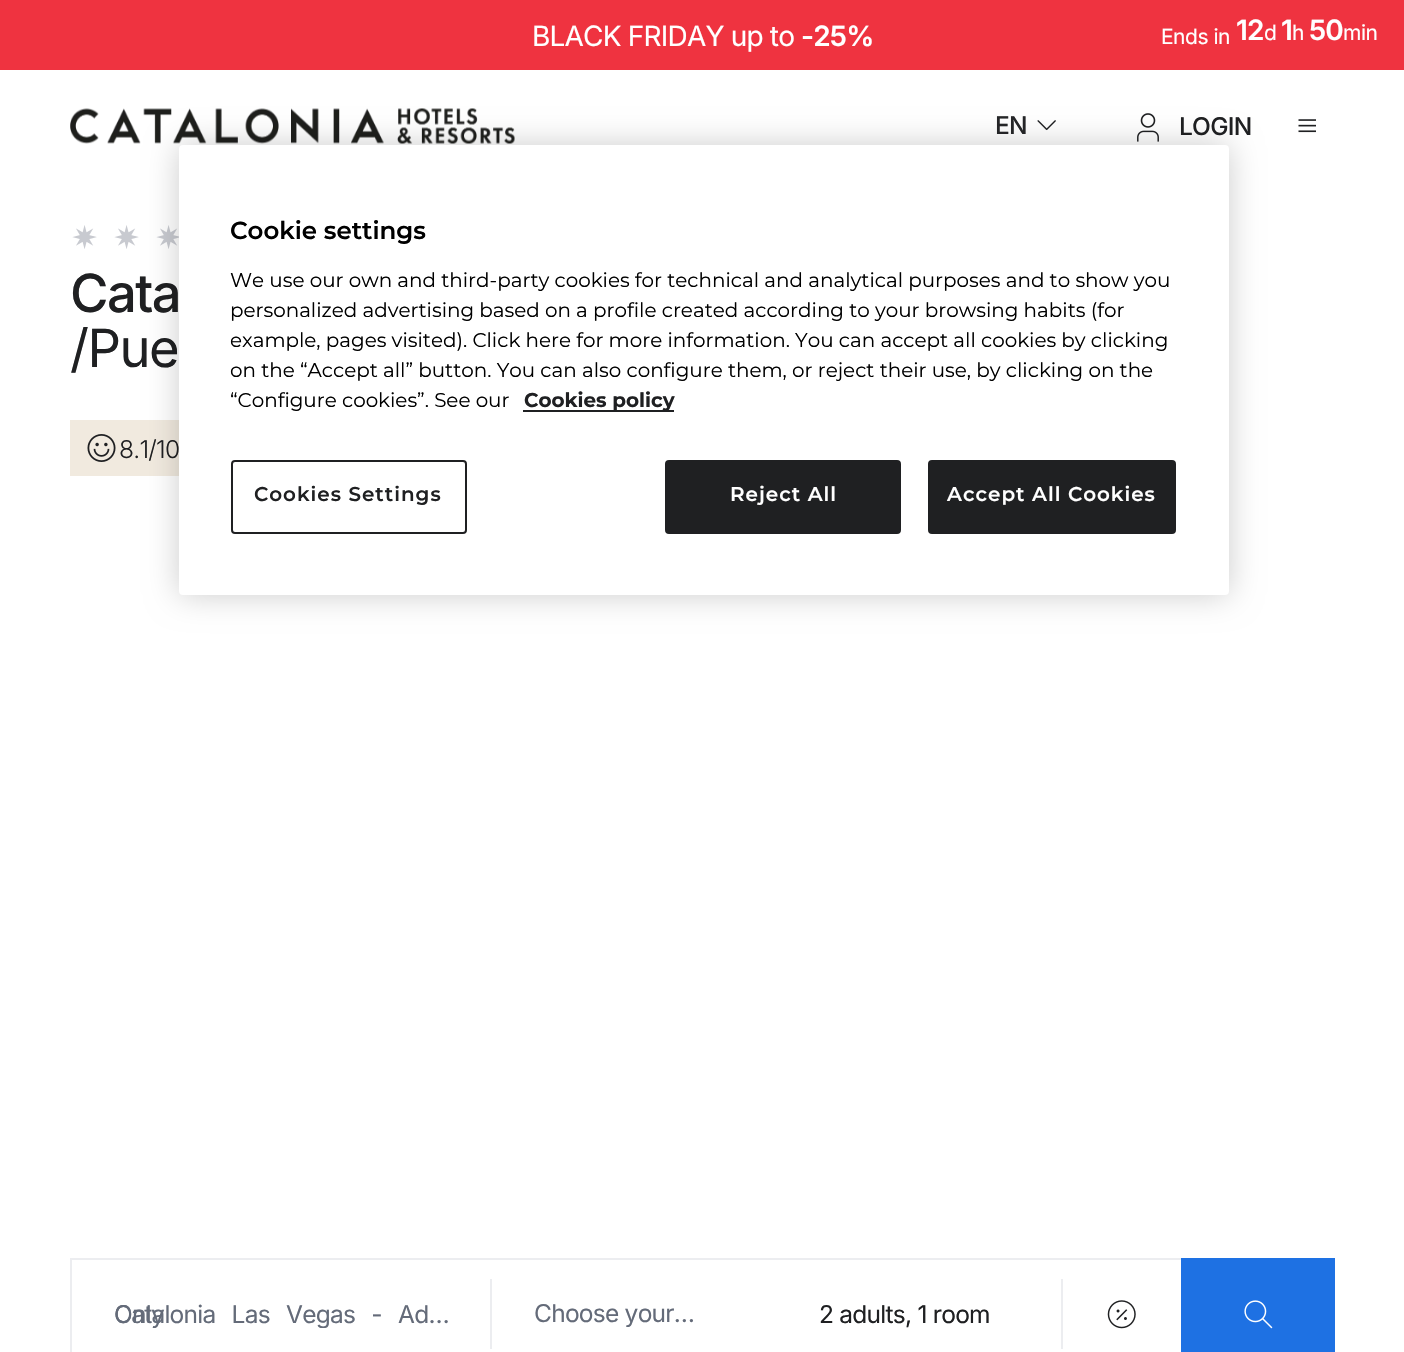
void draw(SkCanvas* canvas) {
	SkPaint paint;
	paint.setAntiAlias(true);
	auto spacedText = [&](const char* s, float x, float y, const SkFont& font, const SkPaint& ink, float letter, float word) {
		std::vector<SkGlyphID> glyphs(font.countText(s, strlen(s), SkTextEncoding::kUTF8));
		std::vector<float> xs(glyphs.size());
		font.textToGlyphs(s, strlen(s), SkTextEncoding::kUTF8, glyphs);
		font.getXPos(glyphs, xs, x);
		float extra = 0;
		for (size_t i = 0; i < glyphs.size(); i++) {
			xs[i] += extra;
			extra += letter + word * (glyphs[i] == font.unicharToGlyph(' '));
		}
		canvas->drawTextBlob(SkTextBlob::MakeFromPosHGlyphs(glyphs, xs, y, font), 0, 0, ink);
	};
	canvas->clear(0xffffffff);
	paint.setColor(0xffef3340);
	canvas->drawRect(SkRect::MakeXYWH(0, 0, 1404, 70), paint);
	SkFont f1(fontMgr->matchFamilyStyle("Inter", SkFontStyle::Normal()), 28);
	f1.setSubpixel(true);
	paint.setColor(0xffffffff);
	spacedText("BLACK FRIDAY up to", 532, 46, f1, paint, -0.8, 0);
	SkFont f2(fontMgr->matchFamilyStyle("Inter", SkFontStyle(600, SkFontStyle::kNormal_Width, SkFontStyle::kUpright_Slant)), 28);
	f2.setSubpixel(true);
	spacedText("-25%", 801, 46, f2, paint, -0.8, 0);
	SkFont f3(fontMgr->matchFamilyStyle("Inter", SkFontStyle::Normal()), 21);
	f3.setSubpixel(true);
	spacedText("Ends in", 1161, 44, f3, paint, -0.5, 0);
	spacedText("12", 1236, 40, f2, paint, -0.8, 0);
	spacedText("d", 1264, 40, f3, paint, -0.5, 0);
	spacedText("1", 1281, 40, f2, paint, -0.8, 0);
	spacedText("h", 1292, 40, f3, paint, -0.5, 0);
	spacedText("50", 1309, 40, f2, paint, -0.8, 0);
	spacedText("min", 1343, 40, f3, paint, -0.5, 0);
	canvas->drawImageRect(SkImages::DeferredFromEncodedData(SkData::MakeFromFileName("img1.png")), SkRect::MakeXYWH(70, 108, 445, 36), SkSamplingOptions());
	SkFont f4(fontMgr->matchFamilyStyle("Inter", SkFontStyle(500, SkFontStyle::kNormal_Width, SkFontStyle::kUpright_Slant)), 24.5);
	f4.setSubpixel(true);
	paint.setColor(0xff252628);
	spacedText("EN", 995, 134, f4, paint, -0.8, 0);
	canvas->drawImageRect(SkImages::DeferredFromEncodedData(SkData::MakeFromFileName("img2.png")), SkRect::MakeXYWH(1037, 120, 19, 11), SkSamplingOptions());
	canvas->drawImageRect(SkImages::DeferredFromEncodedData(SkData::MakeFromFileName("img3.png")), SkRect::MakeXYWH(1137, 113, 22, 29), SkSamplingOptions());
	paint.setColor(0xff1f2022);
	spacedText("LOGIN", 1179, 135, f4, paint, -0.75, 0);
	canvas->drawImageRect(SkImages::DeferredFromEncodedData(SkData::MakeFromFileName("img4.png")), SkRect::MakeXYWH(1298, 119, 18, 14), SkSamplingOptions());
	canvas->drawImageRect(SkImages::DeferredFromEncodedData(SkData::MakeFromFileName("img5.png")), SkRect::MakeXYWH(72, 225, 25, 24), SkSamplingOptions());
	canvas->drawImageRect(SkImages::DeferredFromEncodedData(SkData::MakeFromFileName("img5.png")), SkRect::MakeXYWH(114, 225, 25, 24), SkSamplingOptions());
	canvas->drawImageRect(SkImages::DeferredFromEncodedData(SkData::MakeFromFileName("img6.png")), SkRect::MakeXYWH(156, 225, 23, 24), SkSamplingOptions());
	SkFont f5(fontMgr->matchFamilyStyle("Inter", SkFontStyle(500, SkFontStyle::kNormal_Width, SkFontStyle::kUpright_Slant)), 52.5);
	f5.setSubpixel(true);
	spacedText("Cata", 70, 312, f5, paint, -1.5, 0);
	SkFont f6(fontMgr->matchFamilyStyle("Inter", SkFontStyle::Normal()), 52.5);
	f6.setSubpixel(true);
	spacedText("/Pue", 70, 367, f6, paint, -1.5, 0);
	paint.setColor(0xfff1eadf);
	canvas->drawRect(SkRect::MakeXYWH(70, 420, 109, 56), paint);
	canvas->drawImageRect(SkImages::DeferredFromEncodedData(SkData::MakeFromFileName("img7.png")), SkRect::MakeXYWH(87, 434, 29, 28), SkSamplingOptions());
	SkFont f7(fontMgr->matchFamilyStyle("Inter", SkFontStyle(300, SkFontStyle::kNormal_Width, SkFontStyle::kUpright_Slant)), 24.5);
	f7.setSubpixel(true);
	paint.setColor(0xff1f2022);
	spacedText("8.1/10", 119, 458, f7, paint, -0.75, 0);
	paint.setColor(0xffecedf0);
	canvas->drawRect(SkRect::MakeXYWH(70, 1258, 1111, 2), paint);
	canvas->drawRect(SkRect::MakeXYWH(70, 1258, 2, 94), paint);
	canvas->save();
	canvas->clipRect(SkRect::MakeXYWH(114, 1299, 336, 29));
	SkFont f8(fontMgr->matchFamilyStyle("Inter", SkFontStyle::Normal()), 24.5);
	f8.setSubpixel(true);
	paint.setColor(0xff646b79);
	spacedText("Catalonia Las Vegas - Ad…", 114, 1323, f8, paint, -0.75, 10);
	canvas->restore();
	spacedText("Only", 114, 1323, f8, paint, -0.75, 0);
	paint.setColor(0xffecedf0);
	canvas->drawRect(SkRect::MakeXYWH(490, 1279, 2, 70), paint);
	paint.setColor(0xff646b79);
	spacedText("Choose your…", 534, 1322, f8, paint, -0.75, 0);
	paint.setColor(0xff1f2022);
	spacedText("2 adults, 1 room", 819, 1323, f8, paint, -0.75, 0);
	paint.setColor(0xffecedf0);
	canvas->drawRect(SkRect::MakeXYWH(1061, 1279, 2, 70), paint);
	canvas->drawImageRect(SkImages::DeferredFromEncodedData(SkData::MakeFromFileName("img8.png")), SkRect::MakeXYWH(1107, 1300, 29, 29), SkSamplingOptions());
	paint.setColor(0xff1e71e3);
	canvas->drawRect(SkRect::MakeXYWH(1181, 1258, 154, 94), paint);
	canvas->drawImageRect(SkImages::DeferredFromEncodedData(SkData::MakeFromFileName("img9.png")), SkRect::MakeXYWH(1244, 1300, 29, 29), SkSamplingOptions());
	paint.setColor(0x33000000);
	paint.setMaskFilter(SkMaskFilter::MakeBlur(kNormal_SkBlurStyle, 16));
	canvas->drawRoundRect(SkRect::MakeXYWH(179, 145, 1050, 450), 4, 4, paint);
	paint.setMaskFilter(nullptr);
	paint.setColor(0xffffffff);
	canvas->drawRoundRect(SkRect::MakeXYWH(179, 145, 1050, 450), 4, 4, paint);
	SkFont f9(fontMgr->matchFamilyStyle("Montserrat", SkFontStyle(600, SkFontStyle::kNormal_Width, SkFontStyle::kUpright_Slant)), 24.5);
	f9.setSubpixel(true);
	paint.setColor(0xff000000);
	canvas->drawString("Cookie settings", 230, 239, f9, paint);
	SkFont f10(fontMgr->matchFamilyStyle("Montserrat", SkFontStyle::Normal()), 19.9);
	f10.setSubpixel(true);
	canvas->drawString("We use our own and third-party cookies for technical and analytical purposes and to show you", 230, 287, f10, paint);
	canvas->drawString("personalized advertising based on a profile created according to your browsing habits (for", 230, 317, f10, paint);
	canvas->drawString("example, pages visited). Click here for more information. You can accept all cookies by clicking", 230, 347, f10, paint);
	canvas->drawString("on the “Accept all” button. You can also configure them, or reject their use, by clicking on the", 230, 377, f10, paint);
	canvas->drawString("“Configure cookies”. See our", 230, 407, f10, paint);
	paint.setColor(0xff1f2022);
	canvas->drawRect(SkRect::MakeXYWH(523, 410, 151, 2), paint);
	SkFont f11(fontMgr->matchFamilyStyle("Montserrat", SkFontStyle::Bold()), 19.9);
	f11.setSubpixel(true);
	canvas->drawString("Cookies policy", 524, 407, f11, paint);
	paint.setStroke(true);
	paint.setStrokeWidth(2);
	canvas->drawRoundRect(SkRect::MakeXYWH(232, 461, 234, 72), 3, 3, paint);
	SkFont f12(fontMgr->matchFamilyStyle("Montserrat", SkFontStyle(600, SkFontStyle::kNormal_Width, SkFontStyle::kUpright_Slant)), 19.9);
	f12.setSubpixel(true);
	paint.setStroke(false);
	spacedText("Cookies Settings", 254, 501, f12, paint, 1, 0);
	canvas->drawRoundRect(SkRect::MakeXYWH(666, 461, 234, 72), 3, 3, paint);
	paint.setStroke(true);
	canvas->drawRoundRect(SkRect::MakeXYWH(666, 461, 234, 72), 3, 3, paint);
	paint.setStroke(false);
	paint.setColor(0xffffffff);
	spacedText("Reject All", 730, 501, f12, paint, 1, 0);
	paint.setColor(0xff1f2022);
	canvas->drawRoundRect(SkRect::MakeXYWH(929, 461, 246, 72), 3, 3, paint);
	paint.setStroke(true);
	canvas->drawRoundRect(SkRect::MakeXYWH(929, 461, 246, 72), 3, 3, paint);
	paint.setStroke(false);
	paint.setColor(0xffffffff);
	spacedText("Accept All Cookies", 947, 501, f12, paint, 1, 0);
}
